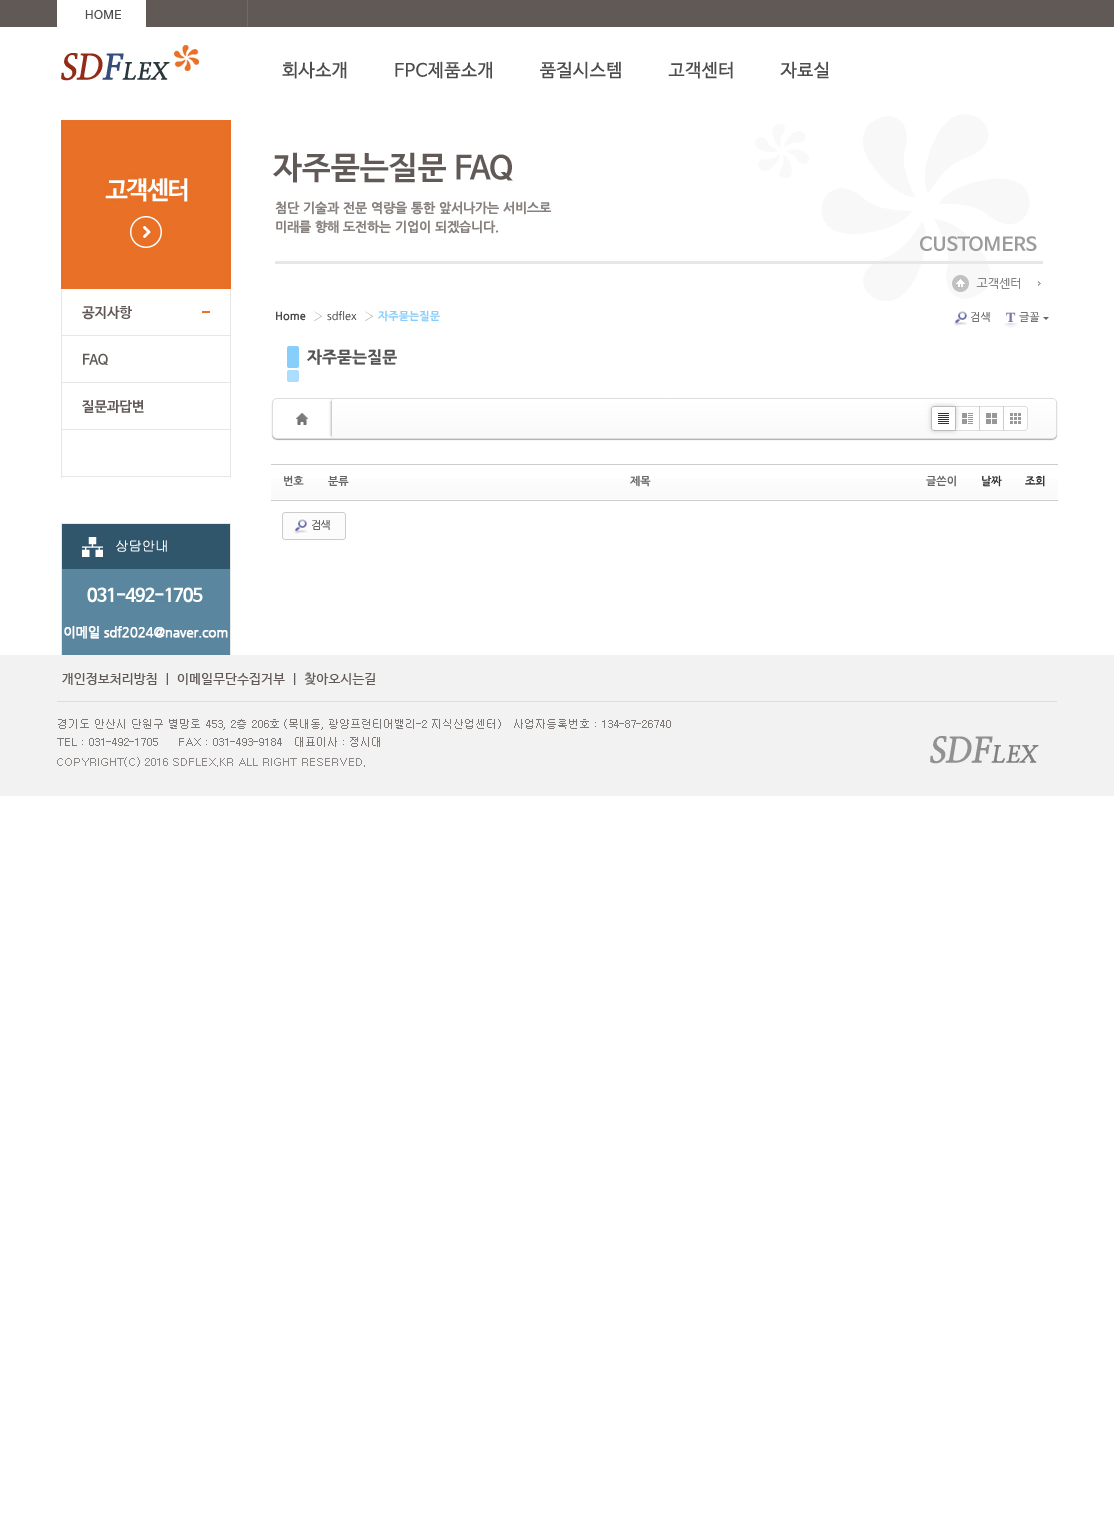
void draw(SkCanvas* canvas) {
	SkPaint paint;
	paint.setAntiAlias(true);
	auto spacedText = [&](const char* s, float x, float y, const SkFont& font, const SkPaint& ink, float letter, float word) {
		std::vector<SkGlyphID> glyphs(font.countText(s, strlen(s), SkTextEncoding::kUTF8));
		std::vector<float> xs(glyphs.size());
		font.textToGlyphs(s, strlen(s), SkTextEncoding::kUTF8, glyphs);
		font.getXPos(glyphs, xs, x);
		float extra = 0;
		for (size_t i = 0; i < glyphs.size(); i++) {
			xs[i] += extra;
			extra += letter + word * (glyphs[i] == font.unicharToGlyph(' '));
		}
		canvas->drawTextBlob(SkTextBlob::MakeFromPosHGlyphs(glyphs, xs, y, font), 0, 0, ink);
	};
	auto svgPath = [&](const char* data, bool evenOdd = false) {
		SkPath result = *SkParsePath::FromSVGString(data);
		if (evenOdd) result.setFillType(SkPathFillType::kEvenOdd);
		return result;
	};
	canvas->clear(0xffffffff);
	paint.setColor(0xff615956);
	canvas->drawRect(SkRect::MakeXYWH(0, 0, 1114, 27), paint);
	canvas->drawImageRect(SkImages::DeferredFromEncodedData(SkData::MakeFromFileName("img1.png")), SkRect::MakeXYWH(57, 0, 89, 27), SkSamplingOptions());
	paint.setColor(0xff706b68);
	canvas->drawRect(SkRect::MakeXYWH(247, 0, 1, 27), paint);
	canvas->drawImageRect(SkImages::DeferredFromEncodedData(SkData::MakeFromFileName("img2.png")), SkRect::MakeXYWH(57, 45, 142, 36), SkSamplingOptions());
	canvas->drawImageRect(SkImages::DeferredFromEncodedData(SkData::MakeFromFileName("img3.png")), SkRect::MakeXYWH(282, 61, 65, 18), SkSamplingOptions());
	canvas->drawImageRect(SkImages::DeferredFromEncodedData(SkData::MakeFromFileName("img4.png")), SkRect::MakeXYWH(395, 61, 97, 18), SkSamplingOptions());
	canvas->drawImageRect(SkImages::DeferredFromEncodedData(SkData::MakeFromFileName("img5.png")), SkRect::MakeXYWH(540, 61, 81, 18), SkSamplingOptions());
	canvas->drawImageRect(SkImages::DeferredFromEncodedData(SkData::MakeFromFileName("img6.png")), SkRect::MakeXYWH(668, 61, 65, 18), SkSamplingOptions());
	canvas->drawImageRect(SkImages::DeferredFromEncodedData(SkData::MakeFromFileName("img7.png")), SkRect::MakeXYWH(780, 61, 49, 18), SkSamplingOptions());
	canvas->drawImageRect(SkImages::DeferredFromEncodedData(SkData::MakeFromFileName("img8.png")), SkRect::MakeXYWH(61, 120, 170, 169), SkSamplingOptions());
	canvas->drawImageRect(SkImages::DeferredFromEncodedData(SkData::MakeFromFileName("img9.png")), SkRect::MakeXYWH(61, 289, 170, 48), SkSamplingOptions());
	canvas->drawImageRect(SkImages::DeferredFromEncodedData(SkData::MakeFromFileName("img10.png")), SkRect::MakeXYWH(61, 337, 170, 47), SkSamplingOptions());
	canvas->drawImageRect(SkImages::DeferredFromEncodedData(SkData::MakeFromFileName("img11.png")), SkRect::MakeXYWH(61, 384, 170, 47), SkSamplingOptions());
	canvas->drawImageRect(SkImages::DeferredFromEncodedData(SkData::MakeFromFileName("img12.png")), SkRect::MakeXYWH(61, 431, 170, 47), SkSamplingOptions());
	canvas->drawImageRect(SkImages::DeferredFromEncodedData(SkData::MakeFromFileName("img13.png")), SkRect::MakeXYWH(56, 523, 175, 132), SkSamplingOptions());
	canvas->drawImageRect(SkImages::DeferredFromEncodedData(SkData::MakeFromFileName("img14.png")), SkRect::MakeXYWH(273, 114, 770, 187), SkSamplingOptions());
	SkFont f1(fontMgr->matchFamilyStyle("NanumGothic", SkFontStyle::Bold()), 11);
	f1.setSubpixel(true);
	paint.setColor(0xff444444);
	canvas->drawString("Home", 275, 320, f1, paint);
	SkFont f2(fontMgr->matchFamilyStyle("NanumGothic", SkFontStyle::Normal()), 11);
	f2.setSubpixel(true);
	paint.setColor(0xff999999);
	canvas->drawString("›", 313, 320, f2, paint);
	paint.setColor(0xff444444);
	canvas->drawString("sdflex", 327, 320, f2, paint);
	paint.setColor(0xff999999);
	canvas->drawString("›", 364, 320, f2, paint);
	paint.setColor(0xff87cefa);
	canvas->drawString("자주묻는질문", 378, 320, f1, paint);
	canvas->drawImageRect(SkImages::DeferredFromEncodedData(SkData::MakeFromFileName("img15.png")), SkRect::MakeXYWH(954, 311, 13, 15), SkSamplingOptions());
	paint.setColor(0xff555555);
	canvas->drawString("검색", 970, 321, f2, paint);
	canvas->save();
	canvas->clipRect(SkRect::MakeXYWH(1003, 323, 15, 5));
	paint.setColor(0xff666699);
	paint.setMaskFilter(SkMaskFilter::MakeBlur(kNormal_SkBlurStyle, 2.5));
	canvas->drawRect(SkRect::MakeXYWH(1007, 321, 7, 2), paint);
	paint.setMaskFilter(nullptr);
	canvas->restore();
	SkFont f3(fontMgr->matchFamilyStyle("Liberation Serif", SkFontStyle::Bold()), 14);
	f3.setSubpixel(true);
	paint.setColor(0xff7777aa);
	canvas->drawString("T", 1006, 322, f3, paint);
	paint.setColor(0xff555555);
	canvas->drawString("글꼴", 1019, 321, f2, paint);
	paint.setColor(0xff666666);
	canvas->drawPath(svgPath("M1043 317H1049L1046 320Z"), paint);
	paint.setColor(0xff87cefa);
	canvas->drawRoundRect(SkRect::MakeXYWH(287, 346, 12, 22), 2, 2, paint);
	SkFont f4(fontMgr->matchFamilyStyle("NanumGothic", SkFontStyle(800, SkFontStyle::kNormal_Width, SkFontStyle::kUpright_Slant)), 16);
	f4.setSubpixel(true);
	paint.setColor(0xff555555);
	canvas->drawString("자주묻는질문", 307, 363, f4, paint);
	paint.setColor(0xffabddfc);
	canvas->drawRoundRect(SkRect::MakeXYWH(287, 370, 12, 12), 2, 2, paint);
	paint.setColor(0xffaaaaaa);
	paint.setMaskFilter(SkMaskFilter::MakeBlur(kNormal_SkBlurStyle, 0.5));
	canvas->drawRoundRect(SkRect::MakeXYWH(272, 399, 785, 41), 5, 5, paint);
	paint.setMaskFilter(nullptr);
	paint.setColor(0xffffffff);
	canvas->drawRoundRect(SkRect::MakeXYWH(272.5, 398.5, 784, 40), 4.5, 4.5, paint);
	paint.setStroke(true);
	paint.setStrokeWidth(1);
	paint.setColor(0xffdddddd);
	canvas->drawRoundRect(SkRect::MakeXYWH(272.5, 398.5, 784, 40), 4.5, 4.5, paint);
	canvas->drawImageRect(SkImages::DeferredFromEncodedData(SkData::MakeFromFileName("img16.png")), SkRect::MakeXYWH(296, 413, 12, 12), SkSamplingOptions());
	paint.setStroke(false);
	paint.setMaskFilter(SkMaskFilter::MakeBlur(kNormal_SkBlurStyle, 1));
	canvas->drawRoundRect(SkRect::MakeXYWH(330, 399, 725, 39), 4, 4, paint);
	paint.setMaskFilter(nullptr);
	{
		const SkColor colors[] = {0xffffffff, 0xfff9f9f9};
		const float stops[] = {0, 1};
		const SkPoint ends[] = {{694, 399}, {694, 438}};
		paint.setShader(SkGradientShader::MakeLinear(ends, colors, stops, 2, SkTileMode::kClamp));
		paint.setAlpha(255);
	}
	canvas->drawRoundRect(SkRect::MakeXYWH(331, 399, 725, 39), 4, 4, paint);
	paint.setShader(nullptr);
	paint.setColor(0xffcccccc);
	canvas->drawRect(SkRect::MakeXYWH(331, 401, 1, 35), paint);
	paint.setColor(0xffffffff);
	canvas->drawRect(SkRect::MakeXYWH(932, 415, 96, 16), paint);
	canvas->save();
	canvas->clipPath(svgPath("M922 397H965V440H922ZM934 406H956V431H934C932.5 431 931 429.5 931 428V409C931 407.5 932.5 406 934 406Z", true), true);
	paint.setColor(0x33000000);
	paint.setMaskFilter(SkMaskFilter::MakeBlur(kNormal_SkBlurStyle, 2.5));
	canvas->drawRoundRect(SkRect::MakeXYWH(931, 406, 25, 25), 3, 3, paint);
	paint.setMaskFilter(nullptr);
	canvas->restore();
	paint.setStroke(true);
	paint.setColor(0xffbbbbbb);
	canvas->drawPath(svgPath("M934 406.5H955.5V430.5H934C932.5 430.5 931.5 429.5 931.5 428V409C931.5 407.5 932.5 406.5 934 406.5Z"), paint);
	canvas->drawImageRect(SkImages::DeferredFromEncodedData(SkData::MakeFromFileName("img17.png")), SkRect::MakeXYWH(938, 413, 11, 11), SkSamplingOptions());
	paint.setColor(0x80bbbbbb);
	canvas->drawRect(SkRect::MakeXYWH(955.5, 406.5, 24, 24), paint);
	canvas->drawImageRect(SkImages::DeferredFromEncodedData(SkData::MakeFromFileName("img18.png")), SkRect::MakeXYWH(962, 413, 11, 11), SkSamplingOptions());
	canvas->drawRect(SkRect::MakeXYWH(979.5, 406.5, 24, 24), paint);
	canvas->drawImageRect(SkImages::DeferredFromEncodedData(SkData::MakeFromFileName("img19.png")), SkRect::MakeXYWH(986, 413, 11, 11), SkSamplingOptions());
	canvas->drawPath(svgPath("M1003.5 406.5H1025C1026.5 406.5 1027.5 407.5 1027.5 409V428C1027.5 429.5 1026.5 430.5 1025 430.5H1003.5Z"), paint);
	canvas->drawImageRect(SkImages::DeferredFromEncodedData(SkData::MakeFromFileName("img20.png")), SkRect::MakeXYWH(1010, 413, 11, 11), SkSamplingOptions());
	paint.setStroke(false);
	{
		const SkColor colors[] = {0xffffffff, 0xfff9f9f9};
		const float stops[] = {0, 1};
		const SkPoint ends[] = {{665, 464}, {665, 501}};
		paint.setShader(SkGradientShader::MakeLinear(ends, colors, stops, 2, SkTileMode::kClamp));
		paint.setAlpha(255);
	}
	canvas->drawRect(SkRect::MakeXYWH(271, 479, 787, 20), paint);
	paint.setShader(nullptr);
	paint.setColor(0xffcccccc);
	canvas->drawRect(SkRect::MakeXYWH(271, 464, 787, 1), paint);
	paint.setColor(0xff666666);
	canvas->drawString("번호", 283, 485, f1, paint);
	canvas->drawString("분류", 328, 485, f1, paint);
	canvas->drawString("제목", 630, 485, f1, paint);
	canvas->drawString("글쓴이", 926, 485, f1, paint);
	paint.setColor(0xff333333);
	canvas->drawString("날짜", 981, 485, f1, paint);
	canvas->drawString("조회", 1025, 485, f1, paint);
	paint.setColor(0xffcccccc);
	canvas->drawRect(SkRect::MakeXYWH(271, 500, 787, 1), paint);
	paint.setColor(0xfffcfcfc);
	canvas->drawRoundRect(SkRect::MakeXYWH(282.5, 512.5, 63, 27), 2.5, 2.5, paint);
	paint.setStroke(true);
	paint.setColor(0xffcccccc);
	canvas->drawRoundRect(SkRect::MakeXYWH(282.5, 512.5, 63, 27), 2.5, 2.5, paint);
	canvas->drawImageRect(SkImages::DeferredFromEncodedData(SkData::MakeFromFileName("img21.png")), SkRect::MakeXYWH(294, 519, 13, 15), SkSamplingOptions());
	paint.setStroke(false);
	paint.setColor(0xff444444);
	spacedText("검색", 311, 529, f2, paint, -1, 0);
	paint.setColor(0xfff2f2f2);
	canvas->drawRect(SkRect::MakeXYWH(0, 655, 1114, 141), paint);
	canvas->drawImageRect(SkImages::DeferredFromEncodedData(SkData::MakeFromFileName("img22.png")), SkRect::MakeXYWH(62, 672, 95, 14), SkSamplingOptions());
	canvas->drawImageRect(SkImages::DeferredFromEncodedData(SkData::MakeFromFileName("img23.png")), SkRect::MakeXYWH(166, 673, 119, 13), SkSamplingOptions());
	canvas->drawImageRect(SkImages::DeferredFromEncodedData(SkData::MakeFromFileName("img24.png")), SkRect::MakeXYWH(294, 672, 81, 13), SkSamplingOptions());
	canvas->drawImageRect(SkImages::DeferredFromEncodedData(SkData::MakeFromFileName("img25.png")), SkRect::MakeXYWH(57, 701, 1000, 66), SkSamplingOptions());
}
